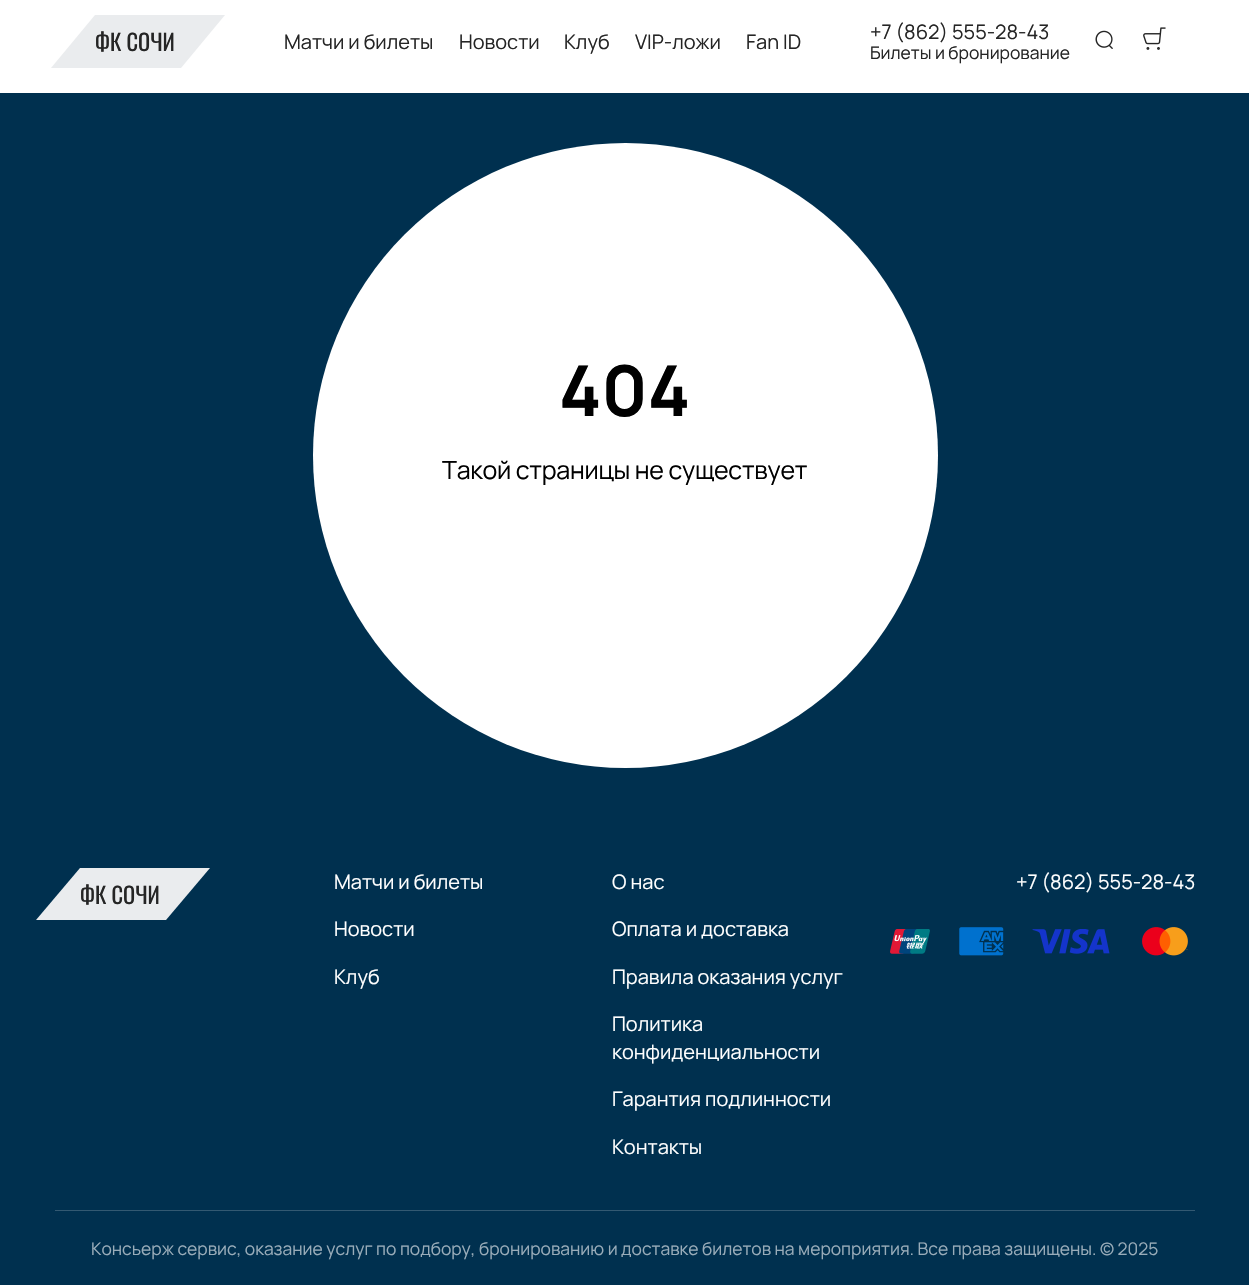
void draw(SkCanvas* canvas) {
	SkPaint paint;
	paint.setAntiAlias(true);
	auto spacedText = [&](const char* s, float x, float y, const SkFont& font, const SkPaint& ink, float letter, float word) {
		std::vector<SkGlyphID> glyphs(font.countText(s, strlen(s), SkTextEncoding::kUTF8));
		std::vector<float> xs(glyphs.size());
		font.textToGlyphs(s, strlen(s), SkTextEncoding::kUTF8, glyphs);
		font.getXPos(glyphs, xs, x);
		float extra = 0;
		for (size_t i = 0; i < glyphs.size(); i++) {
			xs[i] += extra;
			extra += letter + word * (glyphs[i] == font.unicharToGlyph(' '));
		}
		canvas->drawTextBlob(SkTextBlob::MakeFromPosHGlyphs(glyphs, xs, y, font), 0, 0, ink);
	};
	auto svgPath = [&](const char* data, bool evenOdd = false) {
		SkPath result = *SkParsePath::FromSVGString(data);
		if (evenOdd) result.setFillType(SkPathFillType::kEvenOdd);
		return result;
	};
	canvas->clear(0xff00304f);
	paint.setColor(0xffffffff);
	canvas->drawRect(SkRect::MakeXYWH(0, 0, 1249, 93), paint);
	paint.setColor(0xffeaecee);
	canvas->drawPath(svgPath("M95 15H225L181 68H51Z"), paint);
	SkFont f1(fontMgr->matchFamilyStyle("Oswald", SkFontStyle::Normal()), 22.5);
	f1.setSubpixel(true);
	paint.setColor(0xff252525);
	canvas->drawString("ФК СОЧИ", 95, 51, f1, paint);
	SkFont f2(fontMgr->matchFamilyStyle("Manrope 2", SkFontStyle(200, SkFontStyle::kNormal_Width, SkFontStyle::kUpright_Slant)), 20);
	f2.setSubpixel(true);
	canvas->drawString("Матчи и билеты", 284, 49, f2, paint);
	canvas->drawString("Новости", 459, 49, f2, paint);
	canvas->drawString("Клуб", 564, 49, f2, paint);
	canvas->drawString("VIP-ложи", 635, 49, f2, paint);
	canvas->drawString("Fan ID", 746, 49, f2, paint);
	canvas->drawString("+7 (862) 555-28-43", 870, 39, f2, paint);
	SkFont f3(fontMgr->matchFamilyStyle("Manrope 2", SkFontStyle(200, SkFontStyle::kNormal_Width, SkFontStyle::kUpright_Slant)), 17.5);
	f3.setSubpixel(true);
	canvas->drawString("Билеты и бронирование", 870, 59, f3, paint);
	canvas->drawImageRect(SkImages::DeferredFromEncodedData(SkData::MakeFromFileName("img1.png")), SkRect::MakeXYWH(1095, 30, 18, 19), SkSamplingOptions());
	canvas->drawImageRect(SkImages::DeferredFromEncodedData(SkData::MakeFromFileName("img2.png")), SkRect::MakeXYWH(1143, 27, 23, 23), SkSamplingOptions());
	paint.setColor(0xffffffff);
	canvas->drawCircle(625.5, 455.5, 312.5, paint);
	SkFont f4(fontMgr->matchFamilyStyle("Manrope", SkFontStyle(200, SkFontStyle::kNormal_Width, SkFontStyle::kUpright_Slant)), 70);
	f4.setSubpixel(true);
	paint.setColor(0xff000000);
	canvas->drawString("404", 559, 416, f4, paint);
	SkFont f5(fontMgr->matchFamilyStyle("Manrope 2", SkFontStyle(200, SkFontStyle::kNormal_Width, SkFontStyle::kUpright_Slant)), 25);
	f5.setSubpixel(true);
	spacedText("Такой страницы не существует", 442, 479, f5, paint, -0.25, 0);
	paint.setColor(0xffeaecee);
	canvas->drawPath(svgPath("M80 868H210L166 920H36Z"), paint);
	paint.setColor(0xff252525);
	canvas->drawString("ФК СОЧИ", 80, 904, f1, paint);
	paint.setColor(0xffffffff);
	canvas->drawString("Матчи и билеты", 334, 889, f2, paint);
	canvas->drawString("Новости", 334, 936, f2, paint);
	canvas->drawString("Клуб", 334, 984, f2, paint);
	canvas->drawString("О нас", 612, 889, f2, paint);
	canvas->drawString("Оплата и доставка", 612, 936, f2, paint);
	canvas->drawString("Правила оказания услуг", 612, 984, f2, paint);
	canvas->drawString("Политика", 612, 1031, f2, paint);
	canvas->drawString("конфиденциальности", 612, 1059, f2, paint);
	canvas->drawString("Гарантия подлинности", 612, 1106, f2, paint);
	canvas->drawString("Контакты", 612, 1154, f2, paint);
	canvas->drawString("+7 (862) 555-28-43", 1016, 889, f2, paint);
	canvas->drawImageRect(SkImages::DeferredFromEncodedData(SkData::MakeFromFileName("img3.png")), SkRect::MakeXYWH(890, 929, 40, 25), SkSamplingOptions());
	canvas->drawImageRect(SkImages::DeferredFromEncodedData(SkData::MakeFromFileName("img4.png")), SkRect::MakeXYWH(959, 927, 45, 29), SkSamplingOptions());
	canvas->drawImageRect(SkImages::DeferredFromEncodedData(SkData::MakeFromFileName("img5.png")), SkRect::MakeXYWH(1032, 929, 78, 25), SkSamplingOptions());
	canvas->drawImageRect(SkImages::DeferredFromEncodedData(SkData::MakeFromFileName("img6.png")), SkRect::MakeXYWH(1142, 927, 46, 29), SkSamplingOptions());
	paint.setColor(0xff335972);
	canvas->drawRect(SkRect::MakeXYWH(55, 1210, 1140, 1), paint);
	paint.setColor(0xff99acb9);
	canvas->drawString("Консьерж сервис, оказание услуг по подбору, бронированию и доставке билетов на мероприятия. Все права защищены. © 2025", 91, 1255, f3, paint);
}
